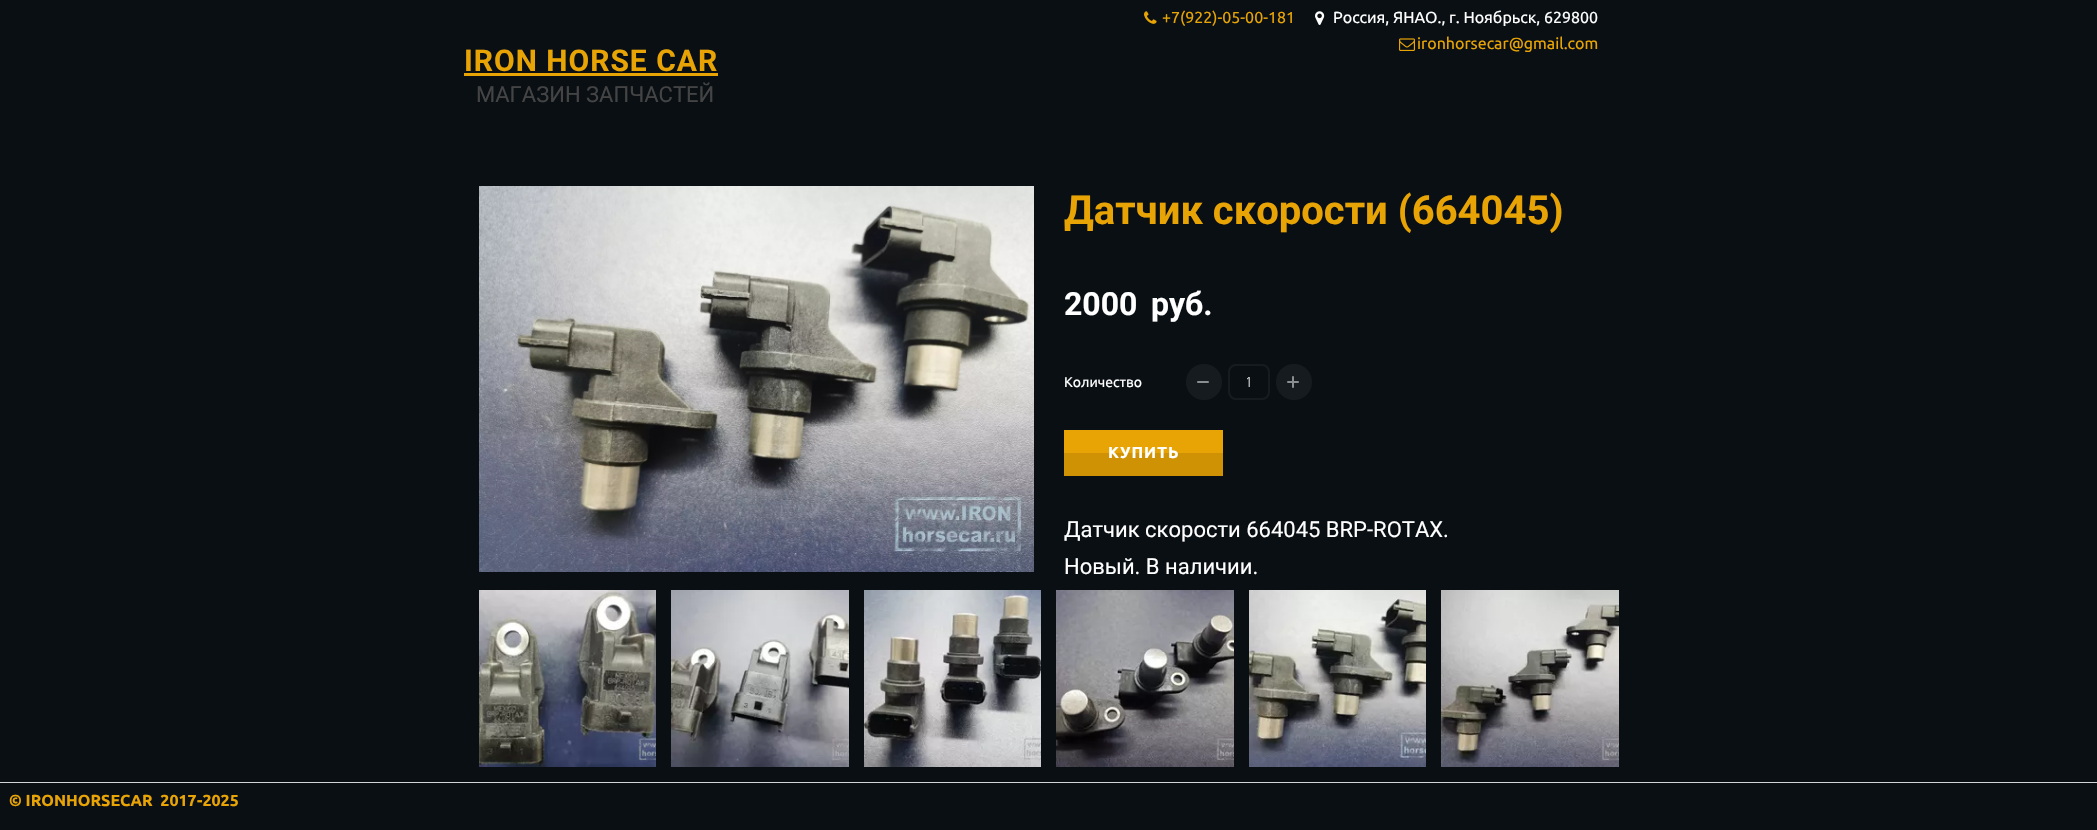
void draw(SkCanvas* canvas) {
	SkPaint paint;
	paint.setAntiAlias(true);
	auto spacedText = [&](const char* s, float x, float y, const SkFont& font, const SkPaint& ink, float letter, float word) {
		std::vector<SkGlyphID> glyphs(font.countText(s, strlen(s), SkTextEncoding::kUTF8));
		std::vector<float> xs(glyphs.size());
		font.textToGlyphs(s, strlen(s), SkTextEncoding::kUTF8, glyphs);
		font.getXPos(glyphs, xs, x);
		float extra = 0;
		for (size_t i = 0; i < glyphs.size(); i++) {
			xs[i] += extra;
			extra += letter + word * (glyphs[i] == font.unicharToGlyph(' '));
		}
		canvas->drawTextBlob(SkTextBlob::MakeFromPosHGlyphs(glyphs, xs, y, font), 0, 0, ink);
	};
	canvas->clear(0xff0a0f14);
	canvas->drawImageRect(SkImages::DeferredFromEncodedData(SkData::MakeFromFileName("img1.png")), SkRect::MakeXYWH(1144, 11, 13, 13), SkSamplingOptions());
	SkFont f1(fontMgr->matchFamilyStyle("Ubuntu", SkFontStyle::Normal()), 16);
	f1.setSubpixel(true);
	paint.setColor(0xffe8a405);
	canvas->drawString("+7(922)-05-00-181", 1162, 23, f1, paint);
	canvas->drawImageRect(SkImages::DeferredFromEncodedData(SkData::MakeFromFileName("img2.png")), SkRect::MakeXYWH(1315, 11, 10, 14), SkSamplingOptions());
	paint.setColor(0xffffffff);
	canvas->drawString("Россия, ЯНАО., г. Ноябрьск, 629800", 1333, 23, f1, paint);
	canvas->drawImageRect(SkImages::DeferredFromEncodedData(SkData::MakeFromFileName("img3.png")), SkRect::MakeXYWH(1399, 38, 16, 13), SkSamplingOptions());
	paint.setColor(0xffe8a405);
	canvas->drawString("ironhorsecar@gmail.com", 1417, 49, f1, paint);
	SkFont f2(fontMgr->matchFamilyStyle("Roboto", SkFontStyle::Bold()), 30);
	f2.setSubpixel(true);
	spacedText("IRON HORSE CAR", 464, 71, f2, paint, 1, 0);
	canvas->drawRect(SkRect::MakeXYWH(464, 73, 254, 3), paint);
	SkFont f3(fontMgr->matchFamilyStyle("Roboto", SkFontStyle::Normal()), 22);
	f3.setSubpixel(true);
	paint.setColor(0xff444444);
	canvas->drawString("МАГАЗИН ЗАПЧАСТЕЙ", 476, 102, f3, paint);
	canvas->drawImageRect(SkImages::DeferredFromEncodedData(SkData::MakeFromFileName("img4.png")), SkRect::MakeXYWH(479, 186, 555, 386), SkSamplingOptions());
	SkFont f4(fontMgr->matchFamilyStyle("Roboto", SkFontStyle::Bold()), 40);
	f4.setSubpixel(true);
	paint.setColor(0xffe8a405);
	canvas->drawString("Датчик скорости (664045)", 1064, 224, f4, paint);
	SkFont f5(fontMgr->matchFamilyStyle("Roboto", SkFontStyle::Bold()), 32);
	f5.setSubpixel(true);
	paint.setColor(0xffffffff);
	canvas->drawString("2000", 1064, 315, f5, paint);
	canvas->drawString("руб.", 1151, 315, f5, paint);
	SkFont f6(fontMgr->matchFamilyStyle("Ubuntu", SkFontStyle::Normal()), 14);
	f6.setSubpixel(true);
	canvas->drawString("Количество", 1064, 387, f6, paint);
	paint.setColor(0xff161b20);
	canvas->drawCircle(1204, 382, 18, paint);
	canvas->drawImageRect(SkImages::DeferredFromEncodedData(SkData::MakeFromFileName("img5.png")), SkRect::MakeXYWH(1197, 381, 12, 2), SkSamplingOptions());
	paint.setStroke(true);
	paint.setStrokeWidth(2);
	canvas->drawRoundRect(SkRect::MakeXYWH(1229, 365, 40, 34), 7, 7, paint);
	SkFont f7(fontMgr->matchFamilyStyle("Open Sans Condensed", SkFontStyle(300, SkFontStyle::kNormal_Width, SkFontStyle::kUpright_Slant)), 14);
	f7.setSubpixel(true);
	paint.setStroke(false);
	paint.setColor(0xffffffff);
	canvas->drawString("1", 1246, 387, f7, paint);
	paint.setColor(0xff161b20);
	canvas->drawCircle(1294, 382, 18, paint);
	canvas->drawImageRect(SkImages::DeferredFromEncodedData(SkData::MakeFromFileName("img6.png")), SkRect::MakeXYWH(1287, 376, 12, 12), SkSamplingOptions());
	paint.setColor(0xffe8a405);
	canvas->drawRect(SkRect::MakeXYWH(1064, 430, 159, 23), paint);
	paint.setColor(0xffcf9204);
	canvas->drawRect(SkRect::MakeXYWH(1064, 453, 159, 23), paint);
	SkFont f8(fontMgr->matchFamilyStyle("Ubuntu", SkFontStyle::Bold()), 16);
	f8.setSubpixel(true);
	paint.setColor(0xffffffff);
	spacedText("КУПИТЬ", 1108, 458, f8, paint, 1, 0);
	canvas->drawString("Датчик скорости 664045 BRP-ROTAX.", 1064, 537, f3, paint);
	canvas->drawString("Новый. В наличии.", 1064, 574, f3, paint);
	canvas->drawImageRect(SkImages::DeferredFromEncodedData(SkData::MakeFromFileName("img7.png")), SkRect::MakeXYWH(479, 590, 177, 177), SkSamplingOptions());
	canvas->drawImageRect(SkImages::DeferredFromEncodedData(SkData::MakeFromFileName("img8.png")), SkRect::MakeXYWH(671, 590, 178, 177), SkSamplingOptions());
	canvas->drawImageRect(SkImages::DeferredFromEncodedData(SkData::MakeFromFileName("img9.png")), SkRect::MakeXYWH(864, 590, 177, 177), SkSamplingOptions());
	canvas->drawImageRect(SkImages::DeferredFromEncodedData(SkData::MakeFromFileName("img10.png")), SkRect::MakeXYWH(1056, 590, 178, 177), SkSamplingOptions());
	canvas->drawImageRect(SkImages::DeferredFromEncodedData(SkData::MakeFromFileName("img11.png")), SkRect::MakeXYWH(1249, 590, 177, 177), SkSamplingOptions());
	canvas->drawImageRect(SkImages::DeferredFromEncodedData(SkData::MakeFromFileName("img12.png")), SkRect::MakeXYWH(1441, 590, 178, 177), SkSamplingOptions());
	paint.setColor(0xffd4d4d4);
	canvas->drawRect(SkRect::MakeXYWH(0, 782, 2097, 1), paint);
	paint.setColor(0xffe8a405);
	canvas->drawString("© IRONHORSECAR  2017", 9, 806, f8, paint);
	canvas->drawString("-2025", 197, 806, f8, paint);
}
